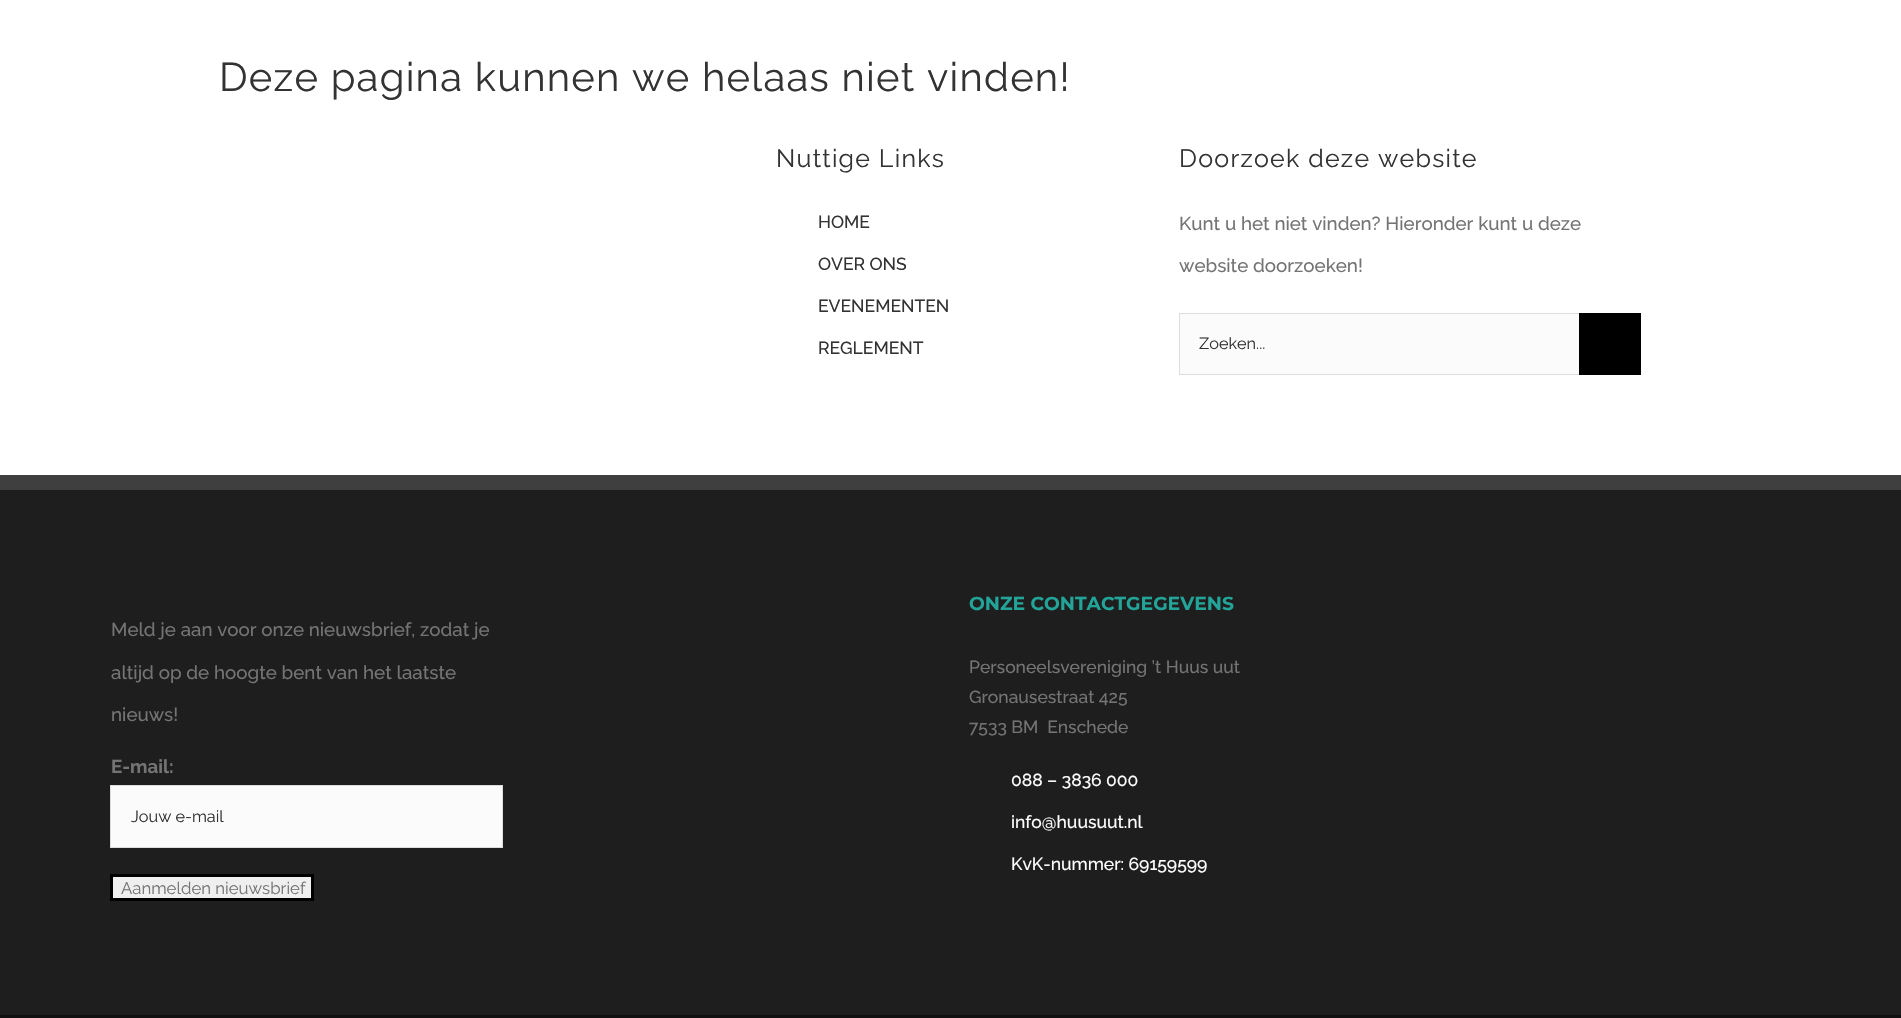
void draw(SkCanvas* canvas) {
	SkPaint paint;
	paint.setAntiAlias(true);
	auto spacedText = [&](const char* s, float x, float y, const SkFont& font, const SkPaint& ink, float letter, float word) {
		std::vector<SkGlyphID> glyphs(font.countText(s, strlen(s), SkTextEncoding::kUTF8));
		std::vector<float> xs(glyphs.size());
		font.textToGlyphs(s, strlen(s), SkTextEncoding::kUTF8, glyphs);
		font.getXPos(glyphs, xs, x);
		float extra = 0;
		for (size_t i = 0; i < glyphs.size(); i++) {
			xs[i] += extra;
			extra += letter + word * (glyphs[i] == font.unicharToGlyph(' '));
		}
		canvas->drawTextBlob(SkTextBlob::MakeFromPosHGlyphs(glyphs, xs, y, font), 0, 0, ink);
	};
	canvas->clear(0xffffffff);
	SkFont f1(fontMgr->matchFamilyStyle("Raleway", SkFontStyle::Normal()), 40);
	f1.setSubpixel(true);
	paint.setColor(0xff333333);
	spacedText("Deze pagina kunnen we helaas niet vinden!", 219, 91, f1, paint, 1.25, 0);
	SkFont f2(fontMgr->matchFamilyStyle("Raleway", SkFontStyle::Normal()), 25);
	f2.setSubpixel(true);
	spacedText("Nuttige Links", 776, 167, f2, paint, 1.25, 0);
	SkFont f3(fontMgr->matchFamilyStyle("Raleway", SkFontStyle(500, SkFontStyle::kNormal_Width, SkFontStyle::kUpright_Slant)), 17.5);
	f3.setSubpixel(true);
	canvas->drawString("HOME", 818, 228, f3, paint);
	canvas->drawString("OVER ONS", 818, 270, f3, paint);
	canvas->drawString("EVENEMENTEN", 818, 312, f3, paint);
	canvas->drawString("REGLEMENT", 818, 354, f3, paint);
	spacedText("Doorzoek deze website", 1179, 167, f2, paint, 1.25, 0);
	SkFont f4(fontMgr->matchFamilyStyle("Raleway", SkFontStyle(500, SkFontStyle::kNormal_Width, SkFontStyle::kUpright_Slant)), 18.75);
	f4.setSubpixel(true);
	paint.setColor(0xff747474);
	canvas->drawString("Kunt u het niet vinden? Hieronder kunt u deze", 1179, 230, f4, paint);
	canvas->drawString("website doorzoeken!", 1179, 272, f4, paint);
	paint.setColor(0xfffbfbfb);
	canvas->drawRect(SkRect::MakeXYWH(1180, 314, 399, 60), paint);
	paint.setColor(0xffdddddd);
	canvas->drawRect(SkRect::MakeXYWH(1179, 313, 400, 1), paint);
	canvas->drawRect(SkRect::MakeXYWH(1179, 374, 400, 1), paint);
	canvas->drawRect(SkRect::MakeXYWH(1179, 313, 1, 62), paint);
	SkFont f5(fontMgr->matchFamilyStyle("Raleway", SkFontStyle::Normal()), 16.25);
	f5.setSubpixel(true);
	paint.setColor(0xff333333);
	canvas->drawString("Zoeken...", 1199, 349, f5, paint);
	paint.setColor(0xff000000);
	canvas->drawRect(SkRect::MakeXYWH(1579, 313, 62, 62), paint);
	paint.setColor(0xff1e1e1e);
	canvas->drawRect(SkRect::MakeXYWH(0, 490, 1901, 525), paint);
	paint.setColor(0xff3f3f3f);
	canvas->drawRect(SkRect::MakeXYWH(0, 475, 1901, 15), paint);
	paint.setColor(0xff747474);
	canvas->drawString("Meld je aan voor onze nieuwsbrief, zodat je", 111, 636, f4, paint);
	canvas->drawString("altijd op de hoogte bent van het laatste", 111, 679, f4, paint);
	canvas->drawString("nieuws!", 111, 721, f4, paint);
	SkFont f6(fontMgr->matchFamilyStyle("Raleway", SkFontStyle::Bold()), 18.75);
	f6.setSubpixel(true);
	canvas->drawString("E-mail:", 111, 773, f6, paint);
	paint.setColor(0xfffbfbfb);
	canvas->drawRect(SkRect::MakeXYWH(110.5, 785.5, 392, 62), paint);
	paint.setStroke(true);
	paint.setStrokeWidth(1);
	paint.setColor(0xffdddddd);
	canvas->drawRect(SkRect::MakeXYWH(110.5, 785.5, 392, 62), paint);
	paint.setStroke(false);
	paint.setColor(0xff333333);
	canvas->drawString("Jouw e-mail", 131, 822, f5, paint);
	paint.setColor(0xffefefef);
	canvas->drawRect(SkRect::MakeXYWH(111.5, 875.5, 201, 24), paint);
	paint.setStroke(true);
	paint.setStrokeWidth(3);
	paint.setColor(0xff000000);
	canvas->drawRect(SkRect::MakeXYWH(111.5, 875.5, 201, 24), paint);
	SkFont f7(fontMgr->matchFamilyStyle("Raleway", SkFontStyle::Normal()), 16.75);
	f7.setSubpixel(true);
	paint.setStroke(false);
	paint.setColor(0xff747474);
	canvas->drawString("Aanmelden nieuwsbrief", 121, 894, f7, paint);
	SkFont f8(fontMgr->matchFamilyStyle("Montserrat", SkFontStyle::Bold()), 18.75);
	f8.setSubpixel(true);
	paint.setColor(0xff22a498);
	canvas->drawString("ONZE CONTACTGEGEVENS", 969, 610, f8, paint);
	paint.setColor(0xff747474);
	canvas->drawString("Personeelsvereniging ’t Huus uut", 969, 673, f3, paint);
	canvas->drawString("Gronausestraat 425", 969, 703, f3, paint);
	canvas->drawString("7533 BM  Enschede", 969, 733, f3, paint);
	paint.setColor(0xffffffff);
	canvas->drawString("088 – 3836 000", 1011, 786, f3, paint);
	canvas->drawString("info@huusuut.nl", 1011, 828, f3, paint);
	canvas->drawString("KvK-nummer: 69159599", 1011, 870, f3, paint);
	paint.setColor(0xff111111);
	canvas->drawRect(SkRect::MakeXYWH(0, 1015, 1901, 3), paint);
}
